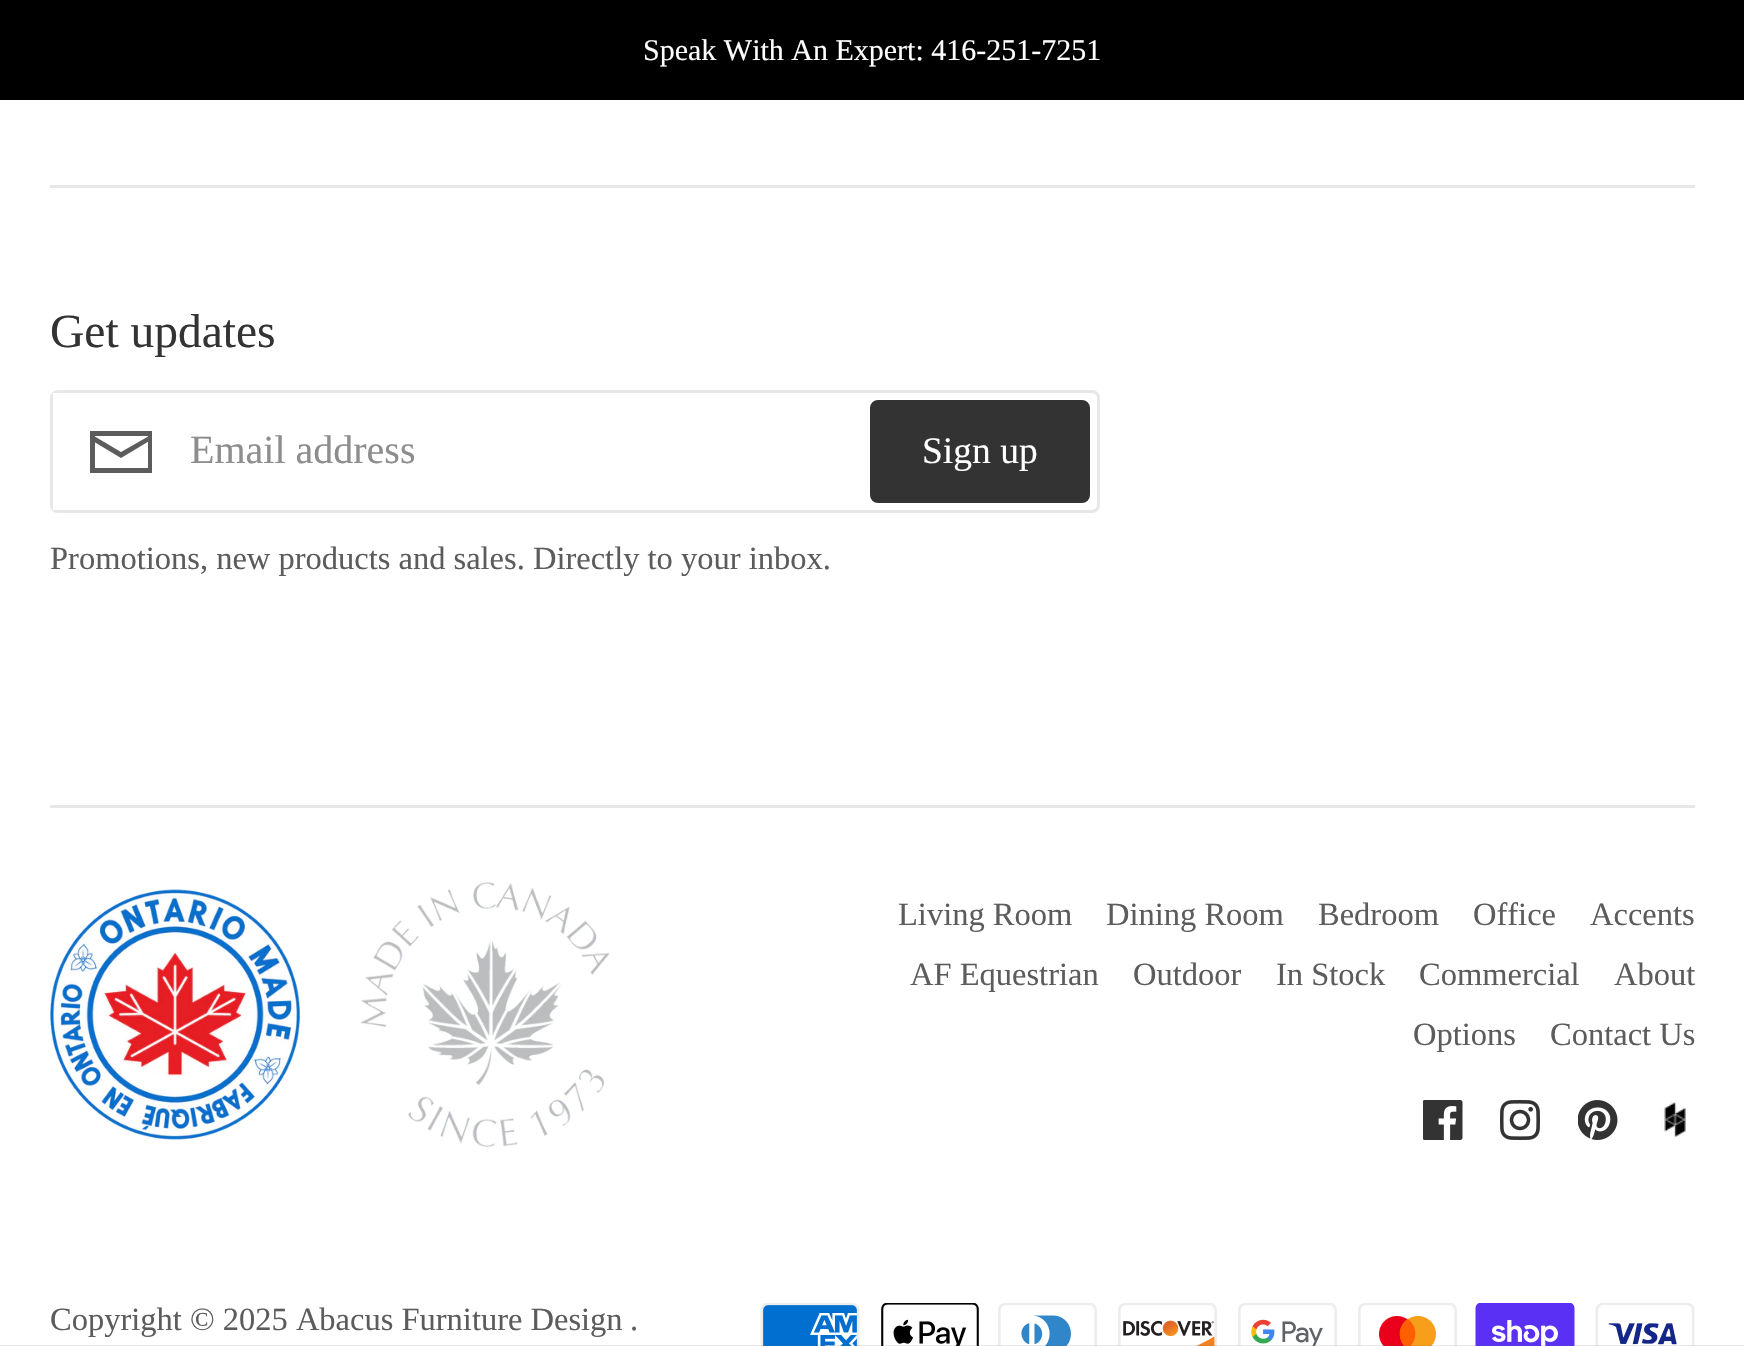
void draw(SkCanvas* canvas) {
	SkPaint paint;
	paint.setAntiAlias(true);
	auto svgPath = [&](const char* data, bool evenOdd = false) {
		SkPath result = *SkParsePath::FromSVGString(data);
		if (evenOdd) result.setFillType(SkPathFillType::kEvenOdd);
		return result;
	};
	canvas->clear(0xffffffff);
	paint.setColor(0xff000000);
	canvas->drawRect(SkRect::MakeXYWH(0, 0, 1744, 100), paint);
	SkFont f1(fontMgr->matchFamilyStyle("Liberation Serif", SkFontStyle::Normal()), 30);
	f1.setSubpixel(true);
	paint.setColor(0xffffffff);
	canvas->drawString("Speak With An Expert: 416-251-7251", 643, 60, f1, paint);
	paint.setColor(0xffe7e7e7);
	canvas->drawRect(SkRect::MakeXYWH(50, 185, 1645, 3), paint);
	SkFont f2(fontMgr->matchFamilyStyle("Liberation Serif", SkFontStyle::Normal()), 47.5);
	f2.setSubpixel(true);
	paint.setColor(0xff333333);
	canvas->drawString("Get updates", 50, 347, f2, paint);
	paint.setStroke(true);
	paint.setStrokeWidth(3);
	paint.setColor(0xffe7e7e7);
	canvas->drawRoundRect(SkRect::MakeXYWH(51.5, 391.5, 1047, 120), 6.5, 6.5, paint);
	paint.setStroke(false);
	paint.setColor(0xff5c5c5c);
	canvas->drawPath(svgPath("M90 431H152V473H90ZM95 436V468H148V436Z"), paint);
	canvas->drawPath(svgPath("M123 453H120L121 452ZM149 436L151 440L121 458L91 440L94 436L121 452Z"), paint);
	paint.setColor(0xffffffff);
	canvas->drawRect(SkRect::MakeXYWH(53, 393, 4, 117), paint);
	SkFont f3(fontMgr->matchFamilyStyle("Liberation Serif", SkFontStyle::Normal()), 40);
	f3.setSubpixel(true);
	paint.setColor(0xff8d8d8d);
	canvas->drawString("Email address", 190, 463, f3, paint);
	paint.setColor(0xff333333);
	canvas->drawRoundRect(SkRect::MakeXYWH(871.5, 401.5, 217, 100), 6.5, 6.5, paint);
	paint.setStroke(true);
	canvas->drawRoundRect(SkRect::MakeXYWH(871.5, 401.5, 217, 100), 6.5, 6.5, paint);
	SkFont f4(fontMgr->matchFamilyStyle("Liberation Serif", SkFontStyle::Normal()), 37.5);
	f4.setSubpixel(true);
	paint.setStroke(false);
	paint.setColor(0xffffffff);
	canvas->drawString("Sign up", 922, 463, f4, paint);
	SkFont f5(fontMgr->matchFamilyStyle("Liberation Serif", SkFontStyle::Normal()), 32.5);
	f5.setSubpixel(true);
	paint.setColor(0xff5c5c5c);
	canvas->drawString("Promotions, new products and sales. Directly to your inbox.", 50, 569, f5, paint);
	paint.setColor(0xffe7e7e7);
	canvas->drawRect(SkRect::MakeXYWH(50, 805, 1645, 3), paint);
	canvas->drawImageRect(SkImages::DeferredFromEncodedData(SkData::MakeFromFileName("img1.png")), SkRect::MakeXYWH(50, 889, 250, 251), SkSamplingOptions());
	canvas->drawImageRect(SkImages::DeferredFromEncodedData(SkData::MakeFromFileName("img2.png")), SkRect::MakeXYWH(360, 882, 250, 265), SkSamplingOptions());
	paint.setColor(0xff5c5c5c);
	canvas->drawString("Living Room", 898, 925, f5, paint);
	canvas->drawString("Dining Room", 1106, 925, f5, paint);
	canvas->drawString("Bedroom", 1318, 925, f5, paint);
	canvas->drawString("Office", 1473, 925, f5, paint);
	canvas->drawString("Accents", 1590, 925, f5, paint);
	canvas->drawString("AF Equestrian", 910, 985, f5, paint);
	canvas->drawString("Outdoor", 1133, 985, f5, paint);
	canvas->drawString("In Stock", 1276, 985, f5, paint);
	canvas->drawString("Commercial", 1419, 985, f5, paint);
	canvas->drawString("About", 1614, 985, f5, paint);
	canvas->drawString("Options", 1413, 1045, f5, paint);
	canvas->drawString("Contact Us", 1550, 1045, f5, paint);
	canvas->drawImageRect(SkImages::DeferredFromEncodedData(SkData::MakeFromFileName("img3.png")), SkRect::MakeXYWH(1423, 1100, 40, 40), SkSamplingOptions());
	canvas->drawImageRect(SkImages::DeferredFromEncodedData(SkData::MakeFromFileName("img4.png")), SkRect::MakeXYWH(1500, 1100, 40, 40), SkSamplingOptions());
	canvas->drawImageRect(SkImages::DeferredFromEncodedData(SkData::MakeFromFileName("img5.png")), SkRect::MakeXYWH(1578, 1100, 40, 40), SkSamplingOptions());
	canvas->drawImageRect(SkImages::DeferredFromEncodedData(SkData::MakeFromFileName("img6.png")), SkRect::MakeXYWH(1661, 1099, 25, 38), SkSamplingOptions());
	canvas->drawString("Copyright © 2025 Abacus Furniture Design", 50, 1330, f5, paint);
	canvas->drawString(".", 630, 1330, f5, paint);
	canvas->drawImageRect(SkImages::DeferredFromEncodedData(SkData::MakeFromFileName("img7.png")), SkRect::MakeXYWH(760, 1303, 100, 43), SkSamplingOptions());
	canvas->drawImageRect(SkImages::DeferredFromEncodedData(SkData::MakeFromFileName("img8.png")), SkRect::MakeXYWH(881, 1303, 98, 43), SkSamplingOptions());
	canvas->drawImageRect(SkImages::DeferredFromEncodedData(SkData::MakeFromFileName("img9.png")), SkRect::MakeXYWH(998, 1303, 99, 43), SkSamplingOptions());
	canvas->drawImageRect(SkImages::DeferredFromEncodedData(SkData::MakeFromFileName("img10.png")), SkRect::MakeXYWH(1118, 1303, 99, 43), SkSamplingOptions());
	canvas->drawImageRect(SkImages::DeferredFromEncodedData(SkData::MakeFromFileName("img11.png")), SkRect::MakeXYWH(1238, 1303, 99, 43), SkSamplingOptions());
	canvas->drawImageRect(SkImages::DeferredFromEncodedData(SkData::MakeFromFileName("img12.png")), SkRect::MakeXYWH(1358, 1303, 99, 43), SkSamplingOptions());
	canvas->drawImageRect(SkImages::DeferredFromEncodedData(SkData::MakeFromFileName("img13.png")), SkRect::MakeXYWH(1475, 1303, 100, 43), SkSamplingOptions());
	canvas->drawImageRect(SkImages::DeferredFromEncodedData(SkData::MakeFromFileName("img14.png")), SkRect::MakeXYWH(1595, 1303, 100, 43), SkSamplingOptions());
	paint.setColor(0x265c5c5c);
	canvas->drawRect(SkRect::MakeXYWH(0, 1345, 1744, 1), paint);
}
